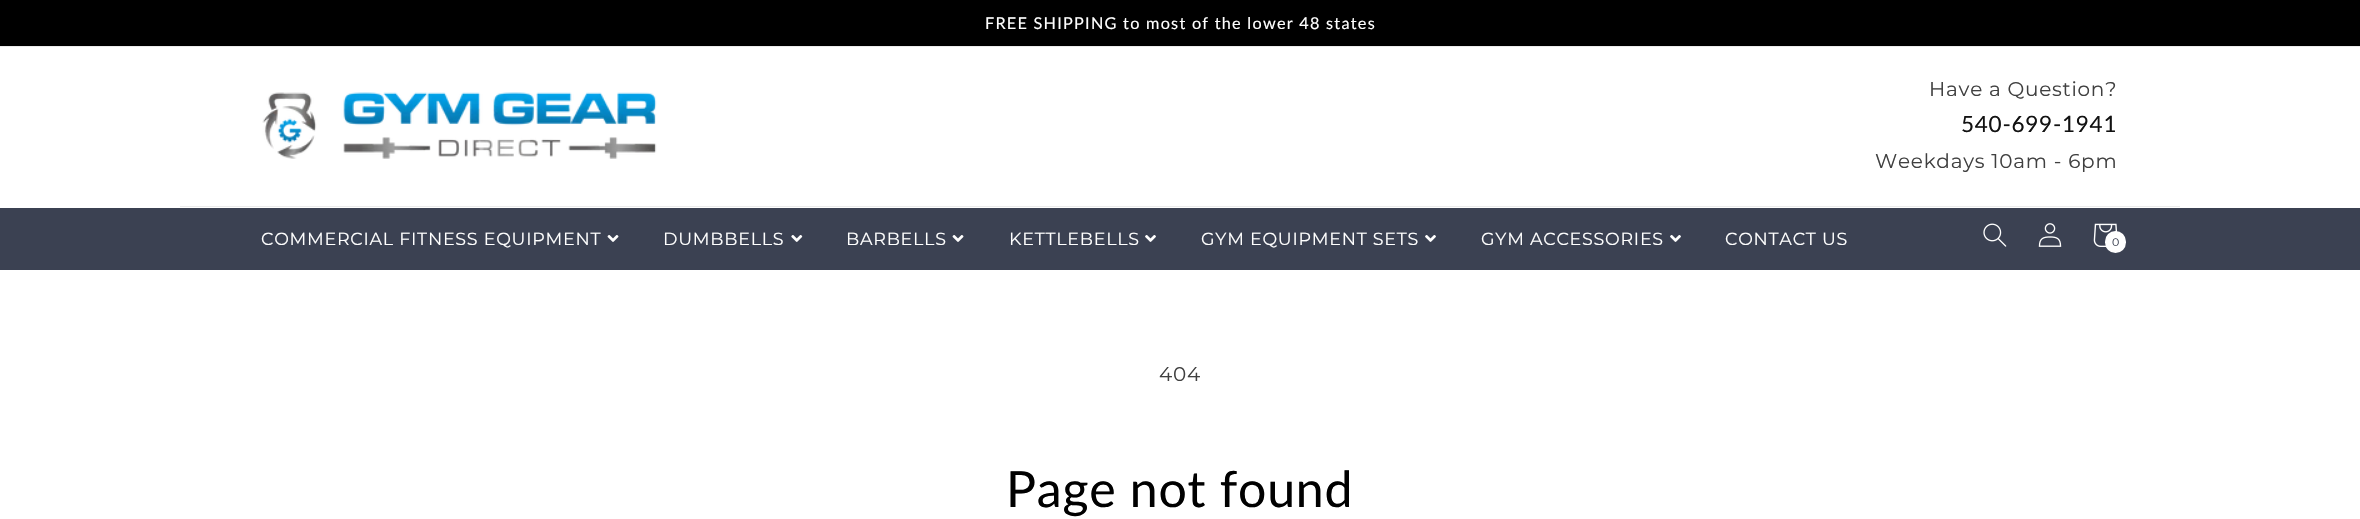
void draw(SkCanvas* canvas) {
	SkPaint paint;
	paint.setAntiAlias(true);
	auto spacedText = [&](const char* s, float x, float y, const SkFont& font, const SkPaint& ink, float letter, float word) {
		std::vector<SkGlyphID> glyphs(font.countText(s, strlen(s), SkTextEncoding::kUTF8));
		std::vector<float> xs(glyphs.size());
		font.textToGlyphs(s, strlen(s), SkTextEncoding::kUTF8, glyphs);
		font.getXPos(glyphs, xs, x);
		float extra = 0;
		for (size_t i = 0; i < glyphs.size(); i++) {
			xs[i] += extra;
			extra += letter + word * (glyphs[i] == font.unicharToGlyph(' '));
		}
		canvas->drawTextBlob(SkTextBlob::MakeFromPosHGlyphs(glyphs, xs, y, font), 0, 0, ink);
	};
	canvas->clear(0xffffffff);
	paint.setColor(0xffebebeb);
	canvas->drawRect(SkRect::MakeXYWH(0, 46, 2360, 1), paint);
	paint.setColor(0xff000000);
	canvas->drawRect(SkRect::MakeXYWH(0, 0, 2360, 46), paint);
	SkFont f1(fontMgr->matchFamilyStyle("Lato", SkFontStyle::Normal()), 16.25);
	f1.setSubpixel(true);
	paint.setColor(0xffffffff);
	spacedText("FREE SHIPPING to most of the lower 48 states", 985, 29, f1, paint, 1.25, 0);
	paint.setColor(0xffebebeb);
	canvas->drawRect(SkRect::MakeXYWH(180, 206, 2000, 1), paint);
	canvas->drawImageRect(SkImages::DeferredFromEncodedData(SkData::MakeFromFileName("img1.png")), SkRect::MakeXYWH(262, 92, 395, 67), SkSamplingOptions());
	SkFont f2(fontMgr->matchFamilyStyle("Montserrat", SkFontStyle::Normal()), 20);
	f2.setSubpixel(true);
	paint.setColor(0xff404040);
	spacedText("Have a Question?", 1929, 96, f2, paint, 0.75, 0);
	SkFont f3(fontMgr->matchFamilyStyle("Lato", SkFontStyle::Normal()), 22.5);
	f3.setSubpixel(true);
	paint.setColor(0xff121212);
	spacedText("540-699-1941", 1961, 132, f3, paint, 0.75, 0);
	paint.setColor(0xff404040);
	spacedText("Weekdays 10am - 6pm", 1875, 168, f2, paint, 0.75, 0);
	paint.setColor(0xff3b4152);
	canvas->drawRect(SkRect::MakeXYWH(0, 208, 2360, 62), paint);
	SkFont f4(fontMgr->matchFamilyStyle("Montserrat", SkFontStyle::Normal()), 17.5);
	f4.setSubpixel(true);
	paint.setColor(0xffffffff);
	spacedText("COMMERCIAL FITNESS EQUIPMENT", 261, 245, f4, paint, 0.75, 0);
	canvas->drawImageRect(SkImages::DeferredFromEncodedData(SkData::MakeFromFileName("img2.png")), SkRect::MakeXYWH(607, 235, 12, 7), SkSamplingOptions());
	spacedText("DUMBBELLS", 663, 245, f4, paint, 0.75, 0);
	canvas->drawImageRect(SkImages::DeferredFromEncodedData(SkData::MakeFromFileName("img3.png")), SkRect::MakeXYWH(791, 235, 12, 7), SkSamplingOptions());
	spacedText("BARBELLS", 846, 245, f4, paint, 0.75, 0);
	canvas->drawImageRect(SkImages::DeferredFromEncodedData(SkData::MakeFromFileName("img2.png")), SkRect::MakeXYWH(952, 235, 12, 7), SkSamplingOptions());
	spacedText("KETTLEBELLS", 1009, 245, f4, paint, 0.75, 0);
	canvas->drawImageRect(SkImages::DeferredFromEncodedData(SkData::MakeFromFileName("img4.png")), SkRect::MakeXYWH(1145, 235, 11, 7), SkSamplingOptions());
	spacedText("GYM EQUIPMENT SETS", 1201, 245, f4, paint, 0.75, 0);
	canvas->drawImageRect(SkImages::DeferredFromEncodedData(SkData::MakeFromFileName("img4.png")), SkRect::MakeXYWH(1425, 235, 11, 7), SkSamplingOptions());
	spacedText("GYM ACCESSORIES", 1481, 245, f4, paint, 0.75, 0);
	canvas->drawImageRect(SkImages::DeferredFromEncodedData(SkData::MakeFromFileName("img4.png")), SkRect::MakeXYWH(1670, 235, 11, 7), SkSamplingOptions());
	spacedText("CONTACT US", 1725, 245, f4, paint, 0.75, 0);
	canvas->drawImageRect(SkImages::DeferredFromEncodedData(SkData::MakeFromFileName("img5.png")), SkRect::MakeXYWH(1983, 223, 24, 24), SkSamplingOptions());
	canvas->drawImageRect(SkImages::DeferredFromEncodedData(SkData::MakeFromFileName("img6.png")), SkRect::MakeXYWH(2038, 223, 24, 24), SkSamplingOptions());
	canvas->drawImageRect(SkImages::DeferredFromEncodedData(SkData::MakeFromFileName("img7.png")), SkRect::MakeXYWH(2093, 223, 25, 24), SkSamplingOptions());
	canvas->drawRoundRect(SkRect::MakeXYWH(2105, 231, 21, 22), 10.5, 10.5, paint);
	SkFont f5(fontMgr->matchFamilyStyle("Montserrat", SkFontStyle::Normal()), 11);
	f5.setSubpixel(true);
	paint.setColor(0xff3b4152);
	spacedText("0", 2112, 246, f5, paint, 0.75, 0);
	paint.setColor(0xff404040);
	spacedText("404", 1159, 381, f2, paint, 0.75, 0);
	SkFont f6(fontMgr->matchFamilyStyle("Lato", SkFontStyle::Normal()), 50);
	f6.setSubpixel(true);
	paint.setColor(0xff000000);
	spacedText("Page not found", 1006, 507, f6, paint, 0.75, 0);
}
